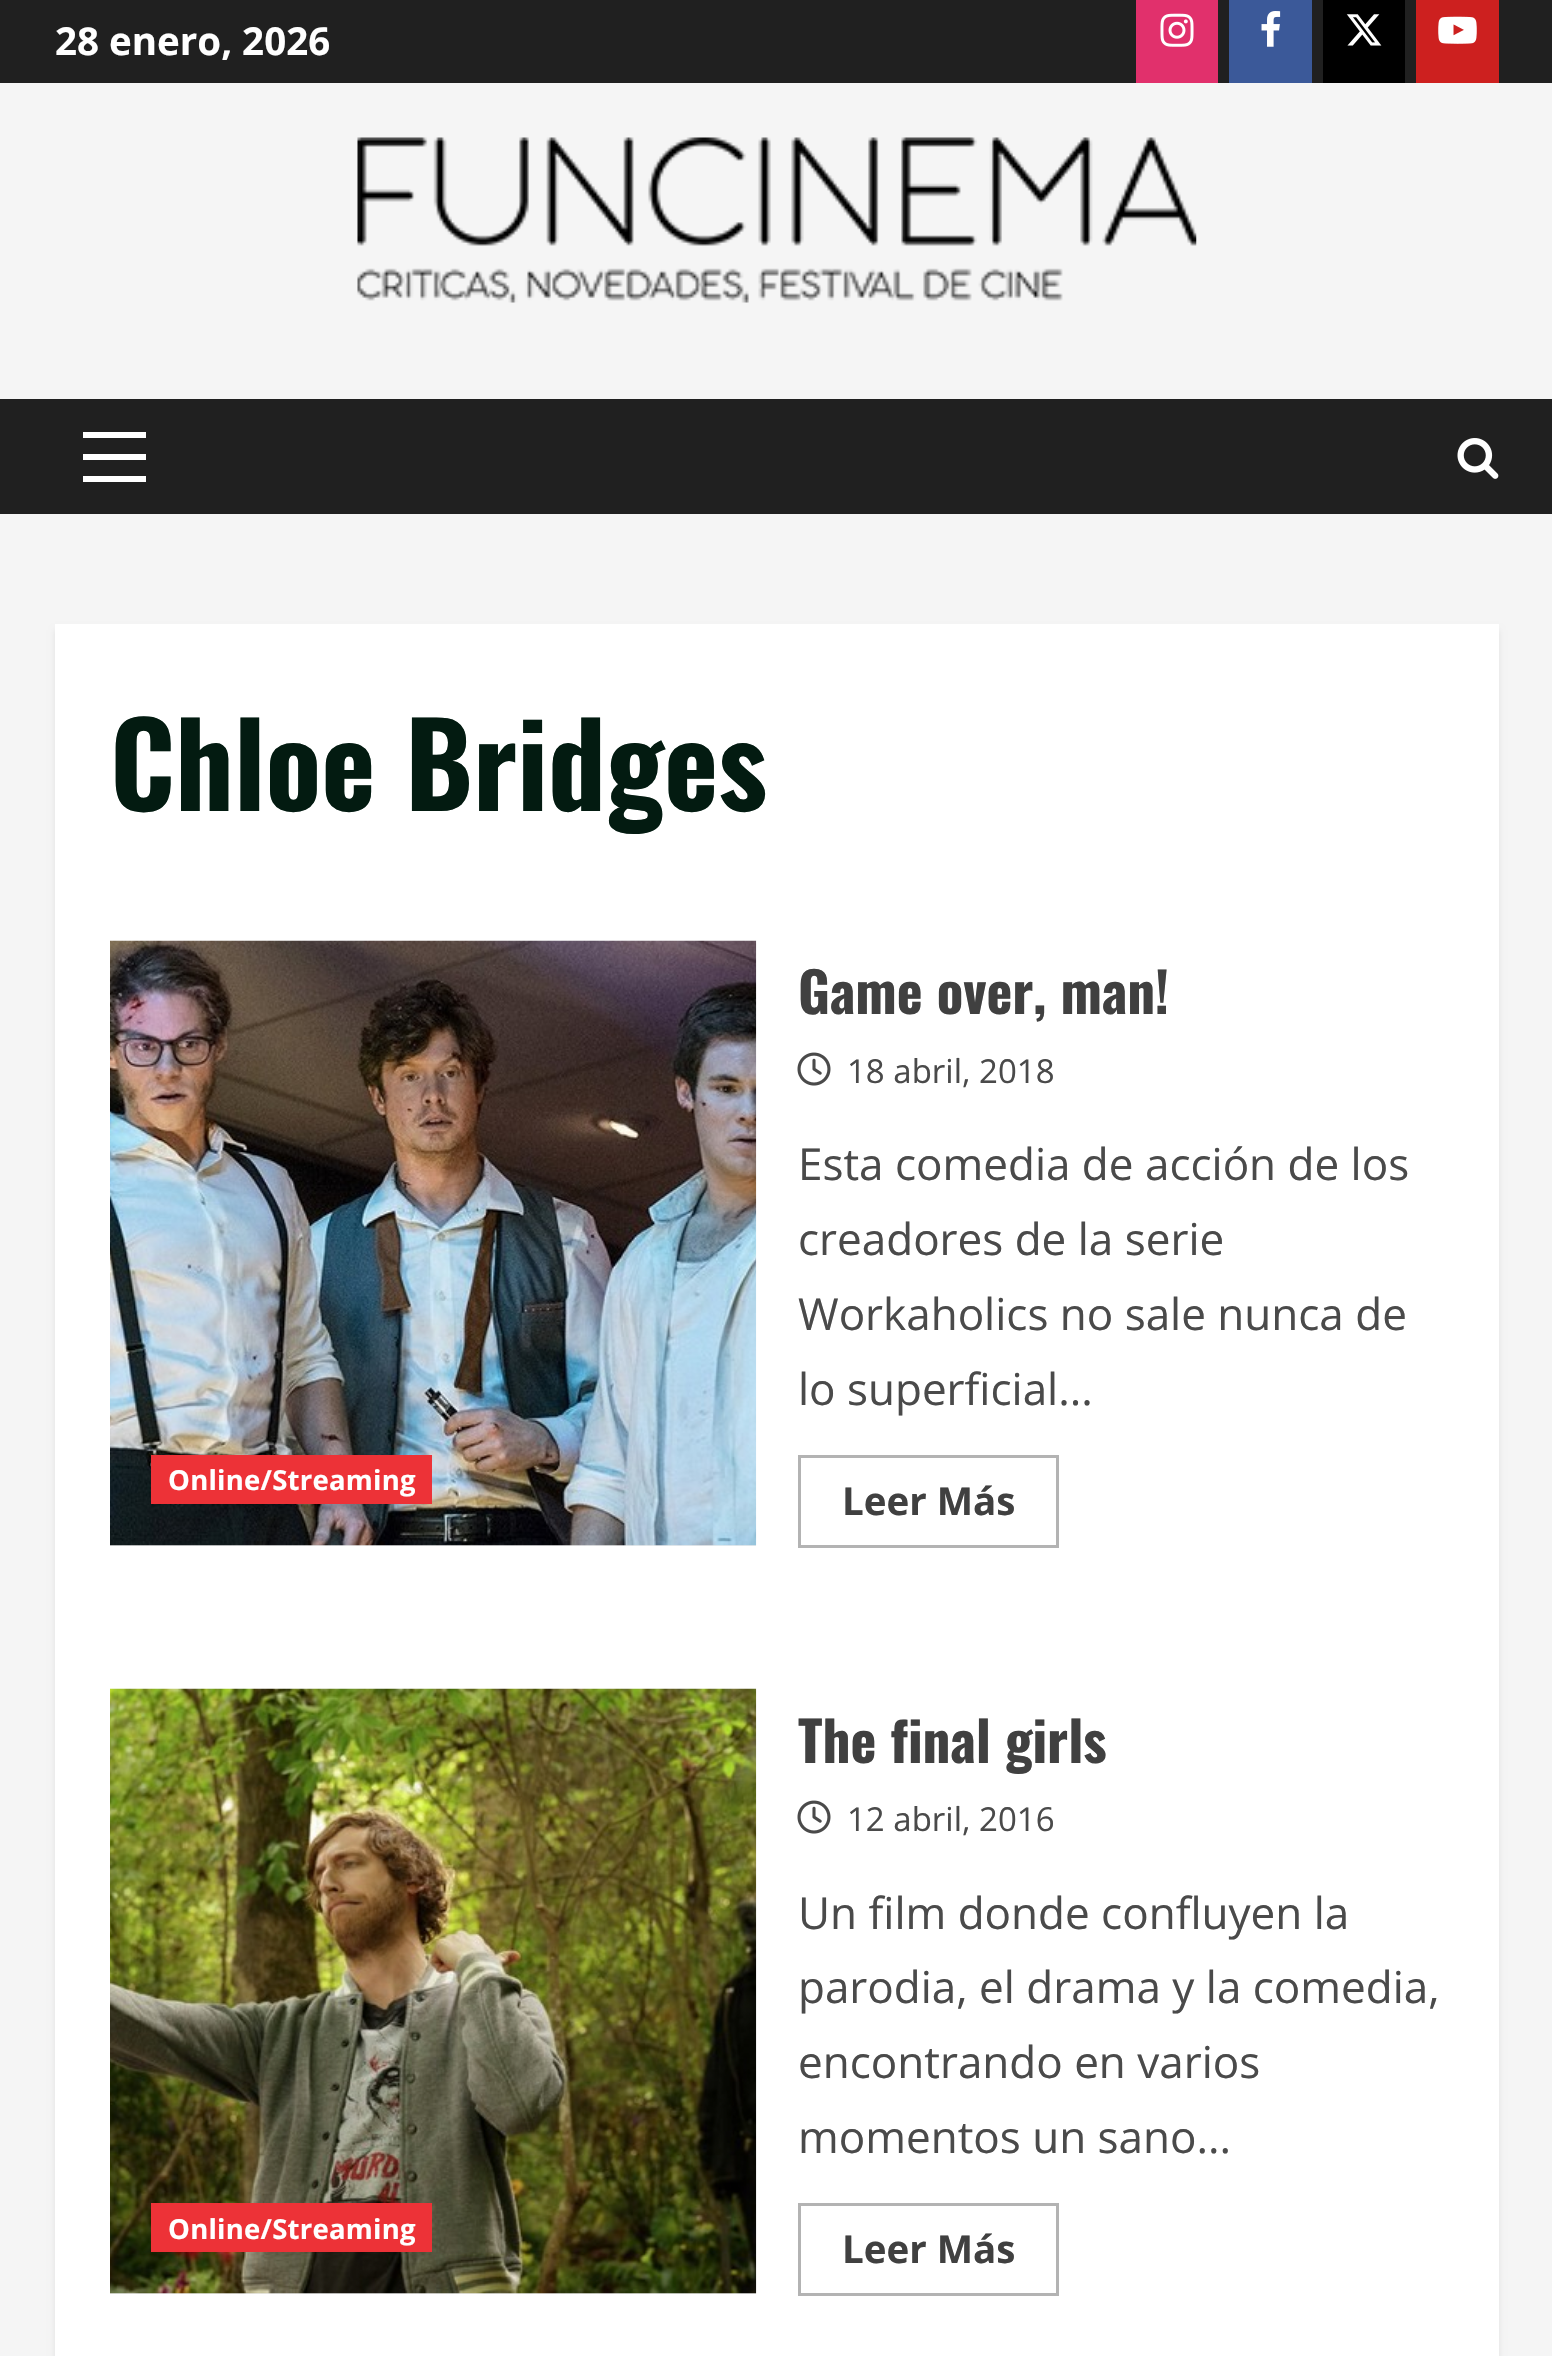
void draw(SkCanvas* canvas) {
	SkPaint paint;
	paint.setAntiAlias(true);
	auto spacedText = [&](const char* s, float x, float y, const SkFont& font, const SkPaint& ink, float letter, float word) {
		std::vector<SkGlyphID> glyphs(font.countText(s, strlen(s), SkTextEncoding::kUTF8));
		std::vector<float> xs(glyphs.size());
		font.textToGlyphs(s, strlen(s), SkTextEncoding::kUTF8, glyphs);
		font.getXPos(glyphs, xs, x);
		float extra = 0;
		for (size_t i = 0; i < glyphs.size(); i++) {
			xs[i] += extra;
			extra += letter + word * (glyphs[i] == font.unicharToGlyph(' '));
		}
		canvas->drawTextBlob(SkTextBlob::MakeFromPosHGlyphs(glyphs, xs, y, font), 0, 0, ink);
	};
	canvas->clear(0xfff5f5f5);
	paint.setColor(0xff202020);
	canvas->drawRect(SkRect::MakeXYWH(0, 0, 1552, 83), paint);
	SkFont f1(fontMgr->matchFamilyStyle("Open Sans", SkFontStyle::Bold()), 38.5);
	f1.setSubpixel(true);
	paint.setColor(0xffffffff);
	canvas->drawString("28 enero, 2026", 55, 55, f1, paint);
	paint.setColor(0xffe1306c);
	canvas->drawRect(SkRect::MakeXYWH(1136, 0, 82, 83), paint);
	canvas->drawImageRect(SkImages::DeferredFromEncodedData(SkData::MakeFromFileName("img1.png")), SkRect::MakeXYWH(1160, 13, 34, 34), SkSamplingOptions());
	paint.setColor(0xff3b5999);
	canvas->drawRect(SkRect::MakeXYWH(1229, 0, 83, 83), paint);
	canvas->drawImageRect(SkImages::DeferredFromEncodedData(SkData::MakeFromFileName("img2.png")), SkRect::MakeXYWH(1261, 11, 20, 36), SkSamplingOptions());
	paint.setColor(0xff000000);
	canvas->drawRect(SkRect::MakeXYWH(1323, 0, 82, 83), paint);
	canvas->drawImageRect(SkImages::DeferredFromEncodedData(SkData::MakeFromFileName("img3.png")), SkRect::MakeXYWH(1346, 14, 36, 32), SkSamplingOptions());
	paint.setColor(0xffcd201f);
	canvas->drawRect(SkRect::MakeXYWH(1416, 0, 83, 83), paint);
	canvas->drawImageRect(SkImages::DeferredFromEncodedData(SkData::MakeFromFileName("img4.png")), SkRect::MakeXYWH(1438, 16, 39, 28), SkSamplingOptions());
	canvas->drawImageRect(SkImages::DeferredFromEncodedData(SkData::MakeFromFileName("img5.png")), SkRect::MakeXYWH(357, 137, 840, 166), SkSamplingOptions());
	paint.setColor(0xff202020);
	canvas->drawRect(SkRect::MakeXYWH(0, 399, 1552, 115), paint);
	paint.setColor(0xffffffff);
	canvas->drawRect(SkRect::MakeXYWH(83, 454, 63, 6), paint);
	canvas->drawRect(SkRect::MakeXYWH(83, 432, 63, 6), paint);
	canvas->drawRect(SkRect::MakeXYWH(83, 476, 63, 6), paint);
	canvas->drawImageRect(SkImages::DeferredFromEncodedData(SkData::MakeFromFileName("img6.png")), SkRect::MakeXYWH(1457, 438, 42, 41), SkSamplingOptions());
	paint.setColor(0x14000000);
	paint.setMaskFilter(SkMaskFilter::MakeBlur(kNormal_SkBlurStyle, 3));
	canvas->drawRect(SkRect::MakeXYWH(55, 630, 1444, 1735), paint);
	paint.setMaskFilter(nullptr);
	paint.setColor(0xffffffff);
	canvas->drawRect(SkRect::MakeXYWH(55, 624, 1444, 1732), paint);
	SkFont f2(fontMgr->matchFamilyStyle("Oswald", SkFontStyle::Bold()), 115.5);
	f2.setSubpixel(true);
	paint.setColor(0xff031b11);
	canvas->drawString("Chloe Bridges", 110, 811, f2, paint);
	paint.setColor(0xffececec);
	canvas->drawRect(SkRect::MakeXYWH(110, 1545, 646, 1), paint);
	canvas->drawImageRect(SkImages::DeferredFromEncodedData(SkData::MakeFromFileName("img7.png")), SkRect::MakeXYWH(110, 940, 647, 606), SkSamplingOptions());
	paint.setColor(0xffed3237);
	canvas->drawRect(SkRect::MakeXYWH(151, 1455, 281, 49), paint);
	SkFont f3(fontMgr->matchFamilyStyle("Open Sans", SkFontStyle::Bold()), 27.5);
	f3.setSubpixel(true);
	paint.setColor(0xffffffff);
	spacedText("Online/Streaming", 168, 1490, f3, paint, 0.25, 0);
	SkFont f4(fontMgr->matchFamilyStyle("Oswald", SkFontStyle::Bold()), 55);
	f4.setSubpixel(true);
	paint.setColor(0xff404040);
	canvas->drawString("Game over, man!", 798, 1014, f4, paint);
	canvas->drawImageRect(SkImages::DeferredFromEncodedData(SkData::MakeFromFileName("img8.png")), SkRect::MakeXYWH(797, 1052, 34, 34), SkSamplingOptions());
	SkFont f5(fontMgr->matchFamilyStyle("Open Sans", SkFontStyle::Normal()), 33);
	f5.setSubpixel(true);
	paint.setColor(0xff4a4a4a);
	canvas->drawString("18 abril, 2018", 847, 1083, f5, paint);
	SkFont f6(fontMgr->matchFamilyStyle("Open Sans", SkFontStyle::Normal()), 44);
	f6.setSubpixel(true);
	canvas->drawString("Esta comedia de acción de los", 798, 1180, f6, paint);
	canvas->drawString("creadores de la serie", 798, 1255, f6, paint);
	canvas->drawString("Workaholics no sale nunca de", 798, 1330, f6, paint);
	canvas->drawString("lo superficial...", 798, 1405, f6, paint);
	paint.setStroke(true);
	paint.setStrokeWidth(3);
	paint.setColor(0xffb3b3b3);
	canvas->drawRect(SkRect::MakeXYWH(799.5, 1456.5, 258, 90), paint);
	paint.setStroke(false);
	paint.setColor(0xff404040);
	canvas->drawString("Leer Más", 842, 1515, f1, paint);
	paint.setColor(0xffececec);
	canvas->drawRect(SkRect::MakeXYWH(110, 2293, 646, 1), paint);
	canvas->drawImageRect(SkImages::DeferredFromEncodedData(SkData::MakeFromFileName("img9.png")), SkRect::MakeXYWH(110, 1688, 647, 606), SkSamplingOptions());
	paint.setColor(0xffed3237);
	canvas->drawRect(SkRect::MakeXYWH(151, 2203, 281, 49), paint);
	paint.setColor(0xffffffff);
	spacedText("Online/Streaming", 168, 2239, f3, paint, 0.25, 0);
	paint.setColor(0xff404040);
	canvas->drawString("The final girls", 798, 1763, f4, paint);
	canvas->drawImageRect(SkImages::DeferredFromEncodedData(SkData::MakeFromFileName("img8.png")), SkRect::MakeXYWH(797, 1800, 34, 34), SkSamplingOptions());
	paint.setColor(0xff4a4a4a);
	canvas->drawString("12 abril, 2016", 847, 1831, f5, paint);
	canvas->drawString("Un film donde confluyen la", 798, 1929, f6, paint);
	canvas->drawString("parodia, el drama y la comedia,", 798, 2003, f6, paint);
	canvas->drawString("encontrando en varios", 798, 2078, f6, paint);
	canvas->drawString("momentos un sano...", 798, 2153, f6, paint);
	paint.setStroke(true);
	paint.setColor(0xffb3b3b3);
	canvas->drawRect(SkRect::MakeXYWH(799.5, 2204.5, 258, 90), paint);
	paint.setStroke(false);
	paint.setColor(0xff404040);
	canvas->drawString("Leer Más", 842, 2263, f1, paint);
}
